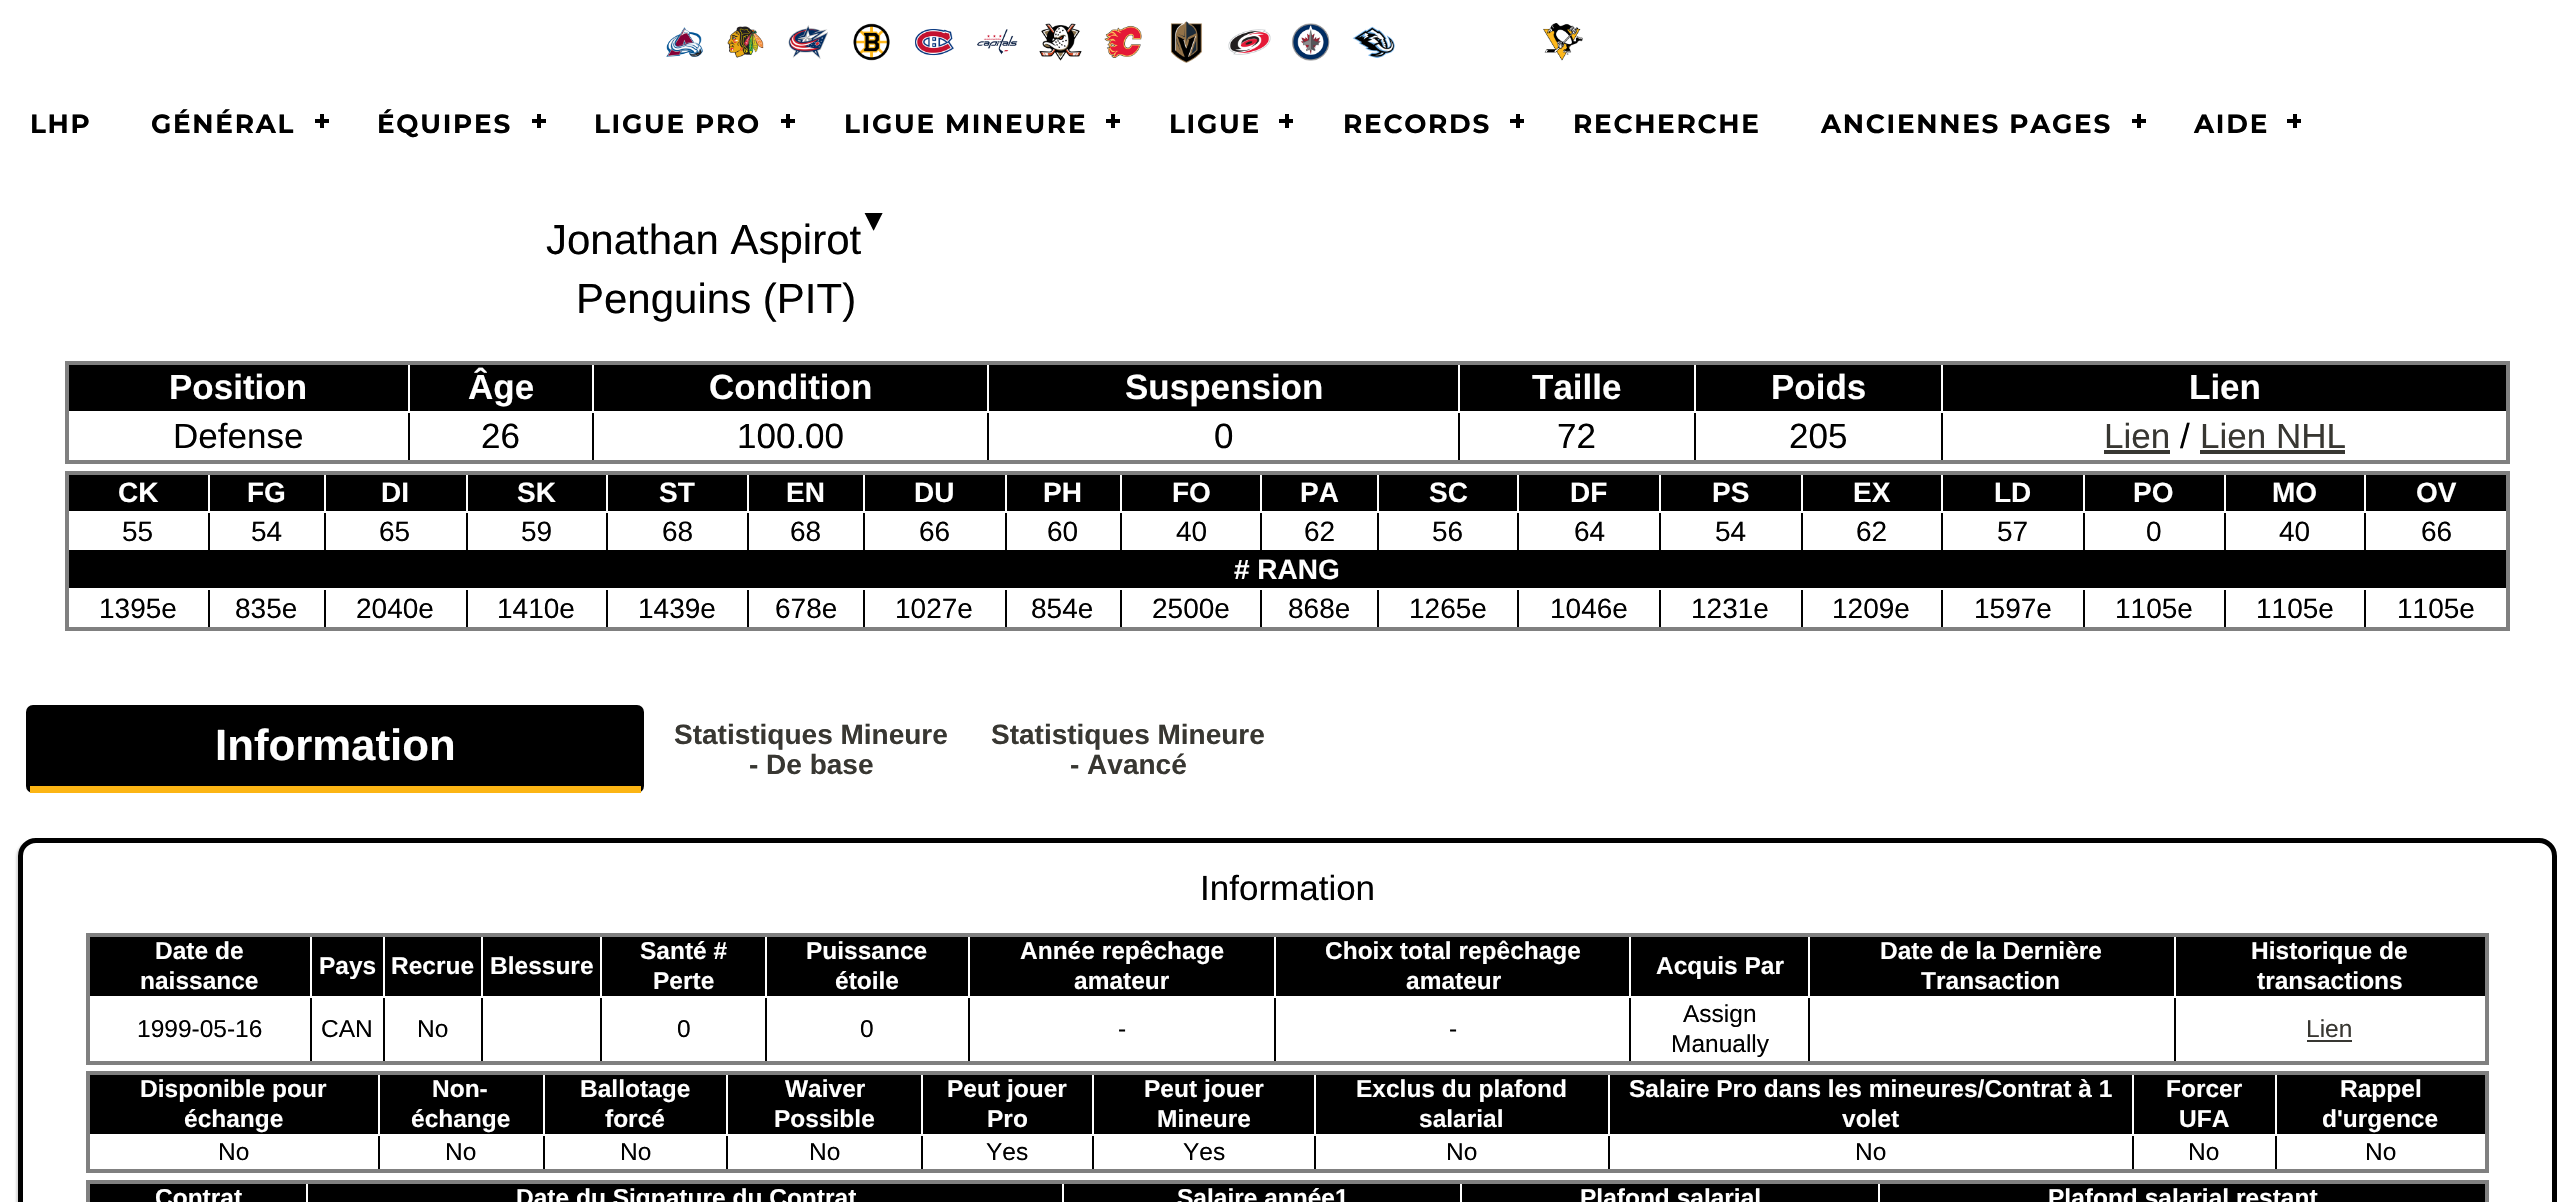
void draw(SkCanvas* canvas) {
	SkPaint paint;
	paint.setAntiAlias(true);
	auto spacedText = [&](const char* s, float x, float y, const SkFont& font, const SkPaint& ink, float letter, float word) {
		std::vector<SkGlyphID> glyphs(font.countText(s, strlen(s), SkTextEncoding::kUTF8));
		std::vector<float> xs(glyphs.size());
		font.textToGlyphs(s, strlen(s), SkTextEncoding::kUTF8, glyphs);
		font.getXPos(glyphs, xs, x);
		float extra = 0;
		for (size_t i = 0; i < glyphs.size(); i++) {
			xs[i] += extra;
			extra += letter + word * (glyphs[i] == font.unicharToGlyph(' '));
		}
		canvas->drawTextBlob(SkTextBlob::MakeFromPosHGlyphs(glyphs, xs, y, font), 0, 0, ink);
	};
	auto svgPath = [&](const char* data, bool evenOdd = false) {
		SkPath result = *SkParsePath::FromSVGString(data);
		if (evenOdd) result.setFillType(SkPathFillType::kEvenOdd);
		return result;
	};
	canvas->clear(0xffffffff);
	canvas->drawImageRect(SkImages::DeferredFromEncodedData(SkData::MakeFromFileName("img1.png")), SkRect::MakeXYWH(666, 27, 37, 30), SkSamplingOptions());
	canvas->drawImageRect(SkImages::DeferredFromEncodedData(SkData::MakeFromFileName("img2.png")), SkRect::MakeXYWH(727, 26, 37, 32), SkSamplingOptions());
	canvas->drawImageRect(SkImages::DeferredFromEncodedData(SkData::MakeFromFileName("img3.png")), SkRect::MakeXYWH(788, 25, 40, 34), SkSamplingOptions());
	canvas->drawImageRect(SkImages::DeferredFromEncodedData(SkData::MakeFromFileName("img4.png")), SkRect::MakeXYWH(853, 23, 37, 38), SkSamplingOptions());
	canvas->drawImageRect(SkImages::DeferredFromEncodedData(SkData::MakeFromFileName("img5.png")), SkRect::MakeXYWH(915, 28, 39, 28), SkSamplingOptions());
	canvas->drawImageRect(SkImages::DeferredFromEncodedData(SkData::MakeFromFileName("img6.png")), SkRect::MakeXYWH(977, 29, 41, 26), SkSamplingOptions());
	canvas->drawImageRect(SkImages::DeferredFromEncodedData(SkData::MakeFromFileName("img7.png")), SkRect::MakeXYWH(1039, 23, 43, 38), SkSamplingOptions());
	canvas->drawImageRect(SkImages::DeferredFromEncodedData(SkData::MakeFromFileName("img8.png")), SkRect::MakeXYWH(1104, 25, 38, 33), SkSamplingOptions());
	canvas->drawImageRect(SkImages::DeferredFromEncodedData(SkData::MakeFromFileName("img9.png")), SkRect::MakeXYWH(1170, 21, 33, 42), SkSamplingOptions());
	canvas->drawImageRect(SkImages::DeferredFromEncodedData(SkData::MakeFromFileName("img10.png")), SkRect::MakeXYWH(1228, 29, 43, 26), SkSamplingOptions());
	canvas->drawImageRect(SkImages::DeferredFromEncodedData(SkData::MakeFromFileName("img11.png")), SkRect::MakeXYWH(1291, 23, 39, 38), SkSamplingOptions());
	canvas->drawImageRect(SkImages::DeferredFromEncodedData(SkData::MakeFromFileName("img12.png")), SkRect::MakeXYWH(1352, 26, 43, 32), SkSamplingOptions());
	canvas->drawImageRect(SkImages::DeferredFromEncodedData(SkData::MakeFromFileName("img13.png")), SkRect::MakeXYWH(1543, 23, 40, 38), SkSamplingOptions());
	SkFont f1(fontMgr->matchFamilyStyle("Montserrat", SkFontStyle::Bold()), 26.25);
	f1.setSubpixel(true);
	paint.setColor(0xff000000);
	spacedText("LHP", 30, 133, f1, paint, 1.75, 0);
	spacedText("GÉNÉRAL", 151, 133, f1, paint, 1.75, 0);
	canvas->drawRect(SkRect::MakeXYWH(320, 114, 4, 14), paint);
	canvas->drawRect(SkRect::MakeXYWH(315, 119, 14, 4), paint);
	spacedText("ÉQUIPES", 377, 133, f1, paint, 1.75, 0);
	canvas->drawRect(SkRect::MakeXYWH(537, 114, 4, 14), paint);
	canvas->drawRect(SkRect::MakeXYWH(532, 119, 14, 4), paint);
	spacedText("LIGUE PRO", 594, 133, f1, paint, 1.75, 0);
	canvas->drawRect(SkRect::MakeXYWH(786, 114, 4, 14), paint);
	canvas->drawRect(SkRect::MakeXYWH(781, 119, 14, 4), paint);
	spacedText("LIGUE MINEURE", 844, 133, f1, paint, 1.75, 0);
	canvas->drawRect(SkRect::MakeXYWH(1111, 114, 4, 14), paint);
	canvas->drawRect(SkRect::MakeXYWH(1106, 119, 14, 4), paint);
	spacedText("LIGUE", 1169, 133, f1, paint, 1.75, 0);
	canvas->drawRect(SkRect::MakeXYWH(1285, 114, 4, 14), paint);
	canvas->drawRect(SkRect::MakeXYWH(1279, 119, 14, 4), paint);
	spacedText("RECORDS", 1343, 133, f1, paint, 1.75, 0);
	canvas->drawRect(SkRect::MakeXYWH(1516, 114, 4, 14), paint);
	canvas->drawRect(SkRect::MakeXYWH(1510, 119, 14, 4), paint);
	spacedText("RECHERCHE", 1573, 133, f1, paint, 1.75, 0);
	spacedText("ANCIENNES PAGES", 1821, 133, f1, paint, 1.75, 0);
	canvas->drawRect(SkRect::MakeXYWH(2137, 114, 4, 14), paint);
	canvas->drawRect(SkRect::MakeXYWH(2132, 119, 14, 4), paint);
	spacedText("AIDE", 2194, 133, f1, paint, 1.75, 0);
	canvas->drawRect(SkRect::MakeXYWH(2293, 114, 4, 14), paint);
	canvas->drawRect(SkRect::MakeXYWH(2287, 119, 14, 4), paint);
	SkFont f2(fontMgr->matchFamilyStyle("Liberation Sans", SkFontStyle::Normal()), 42);
	f2.setSubpixel(true);
	canvas->drawString("Jonathan Aspirot", 546, 254, f2, paint);
	SkFont f3(fontMgr->matchFamilyStyle("Montserrat", SkFontStyle::Normal()), 42);
	f3.setSubpixel(true);
	canvas->drawString("▼", 861, 233, f3, paint);
	canvas->drawString("Penguins (PIT)", 576, 313, f2, paint);
	paint.setColor(0xff808080);
	canvas->drawRect(SkRect::MakeXYWH(65, 361, 2445, 4), paint);
	canvas->drawRect(SkRect::MakeXYWH(2506, 361, 4, 103), paint);
	paint.setColor(0xff000000);
	canvas->drawRect(SkRect::MakeXYWH(408, 411, 2, 53), paint);
	canvas->drawRect(SkRect::MakeXYWH(592, 411, 2, 53), paint);
	canvas->drawRect(SkRect::MakeXYWH(987, 411, 2, 53), paint);
	canvas->drawRect(SkRect::MakeXYWH(1458, 411, 2, 53), paint);
	canvas->drawRect(SkRect::MakeXYWH(1694, 411, 2, 53), paint);
	canvas->drawRect(SkRect::MakeXYWH(1941, 411, 2, 53), paint);
	paint.setColor(0xff808080);
	canvas->drawRect(SkRect::MakeXYWH(65, 460, 2445, 4), paint);
	canvas->drawRect(SkRect::MakeXYWH(65, 361, 4, 103), paint);
	paint.setColor(0xff000000);
	canvas->drawRect(SkRect::MakeXYWH(69, 365, 339, 46), paint);
	SkFont f4(fontMgr->matchFamilyStyle("Liberation Sans", SkFontStyle::Bold()), 35);
	f4.setSubpixel(true);
	paint.setColor(0xffffffff);
	canvas->drawString("Position", 169, 399, f4, paint);
	paint.setColor(0xff000000);
	canvas->drawRect(SkRect::MakeXYWH(410, 365, 182, 46), paint);
	paint.setColor(0xffffffff);
	canvas->drawRect(SkRect::MakeXYWH(408, 411, 2, 2), paint);
	canvas->drawString("Âge", 468, 399, f4, paint);
	paint.setColor(0xff000000);
	canvas->drawRect(SkRect::MakeXYWH(594, 365, 393, 46), paint);
	paint.setColor(0xffffffff);
	canvas->drawRect(SkRect::MakeXYWH(592, 411, 2, 2), paint);
	canvas->drawString("Condition", 709, 399, f4, paint);
	paint.setColor(0xff000000);
	canvas->drawRect(SkRect::MakeXYWH(989, 365, 469, 46), paint);
	paint.setColor(0xffffffff);
	canvas->drawRect(SkRect::MakeXYWH(987, 411, 2, 2), paint);
	canvas->drawString("Suspension", 1125, 399, f4, paint);
	paint.setColor(0xff000000);
	canvas->drawRect(SkRect::MakeXYWH(1460, 365, 234, 46), paint);
	paint.setColor(0xffffffff);
	canvas->drawRect(SkRect::MakeXYWH(1458, 411, 2, 2), paint);
	canvas->drawString("Taille", 1532, 399, f4, paint);
	paint.setColor(0xff000000);
	canvas->drawRect(SkRect::MakeXYWH(1696, 365, 245, 46), paint);
	paint.setColor(0xffffffff);
	canvas->drawRect(SkRect::MakeXYWH(1694, 411, 2, 2), paint);
	canvas->drawString("Poids", 1771, 399, f4, paint);
	paint.setColor(0xff000000);
	canvas->drawRect(SkRect::MakeXYWH(1943, 365, 563, 46), paint);
	paint.setColor(0xffffffff);
	canvas->drawRect(SkRect::MakeXYWH(1941, 411, 2, 2), paint);
	canvas->drawString("Lien", 2189, 399, f4, paint);
	SkFont f5(fontMgr->matchFamilyStyle("Liberation Sans", SkFontStyle::Normal()), 35);
	f5.setSubpixel(true);
	paint.setColor(0xff000000);
	canvas->drawString("Defense", 173, 448, f5, paint);
	canvas->drawString("26", 481, 448, f5, paint);
	canvas->drawString("100.00", 737, 448, f5, paint);
	canvas->drawString("0", 1214, 448, f5, paint);
	canvas->drawString("72", 1557, 448, f5, paint);
	canvas->drawString("205", 1789, 448, f5, paint);
	paint.setColor(0xff383732);
	canvas->drawString("Lien", 2104, 448, f5, paint);
	canvas->drawRect(SkRect::MakeXYWH(2104, 450, 66, 4), paint);
	paint.setColor(0xff000000);
	canvas->drawString("/", 2180, 448, f5, paint);
	paint.setColor(0xff383732);
	canvas->drawString("Lien NHL", 2200, 448, f5, paint);
	canvas->drawRect(SkRect::MakeXYWH(2200, 450, 145, 4), paint);
	paint.setColor(0xff808080);
	canvas->drawRect(SkRect::MakeXYWH(65, 471, 2445, 4), paint);
	paint.setColor(0xff000000);
	canvas->drawRect(SkRect::MakeXYWH(2364, 550, 146, 2), paint);
	paint.setColor(0xff808080);
	canvas->drawRect(SkRect::MakeXYWH(2506, 471, 4, 159), paint);
	paint.setColor(0xff000000);
	canvas->drawRect(SkRect::MakeXYWH(208, 588, 2, 42), paint);
	canvas->drawRect(SkRect::MakeXYWH(324, 588, 2, 42), paint);
	canvas->drawRect(SkRect::MakeXYWH(466, 588, 2, 42), paint);
	canvas->drawRect(SkRect::MakeXYWH(606, 588, 2, 42), paint);
	canvas->drawRect(SkRect::MakeXYWH(747, 588, 2, 42), paint);
	canvas->drawRect(SkRect::MakeXYWH(863, 588, 2, 42), paint);
	canvas->drawRect(SkRect::MakeXYWH(1005, 588, 2, 42), paint);
	canvas->drawRect(SkRect::MakeXYWH(1120, 588, 2, 42), paint);
	canvas->drawRect(SkRect::MakeXYWH(1260, 588, 2, 42), paint);
	canvas->drawRect(SkRect::MakeXYWH(1377, 588, 2, 42), paint);
	canvas->drawRect(SkRect::MakeXYWH(1517, 588, 2, 42), paint);
	canvas->drawRect(SkRect::MakeXYWH(1659, 588, 2, 42), paint);
	canvas->drawRect(SkRect::MakeXYWH(1801, 588, 2, 42), paint);
	canvas->drawRect(SkRect::MakeXYWH(1941, 588, 2, 42), paint);
	canvas->drawRect(SkRect::MakeXYWH(2083, 588, 2, 42), paint);
	canvas->drawRect(SkRect::MakeXYWH(2224, 588, 2, 42), paint);
	canvas->drawRect(SkRect::MakeXYWH(2364, 588, 2, 42), paint);
	paint.setColor(0xff808080);
	canvas->drawRect(SkRect::MakeXYWH(65, 627, 2445, 4), paint);
	paint.setColor(0xff000000);
	canvas->drawRect(SkRect::MakeXYWH(2364, 511, 2, 40), paint);
	canvas->drawRect(SkRect::MakeXYWH(2224, 550, 142, 2), paint);
	canvas->drawRect(SkRect::MakeXYWH(2224, 511, 2, 40), paint);
	canvas->drawRect(SkRect::MakeXYWH(2083, 550, 143, 2), paint);
	canvas->drawRect(SkRect::MakeXYWH(2083, 511, 2, 40), paint);
	canvas->drawRect(SkRect::MakeXYWH(1941, 550, 143, 2), paint);
	canvas->drawRect(SkRect::MakeXYWH(1941, 511, 2, 40), paint);
	canvas->drawRect(SkRect::MakeXYWH(1801, 550, 142, 2), paint);
	canvas->drawRect(SkRect::MakeXYWH(1801, 511, 2, 40), paint);
	canvas->drawRect(SkRect::MakeXYWH(1659, 550, 144, 2), paint);
	canvas->drawRect(SkRect::MakeXYWH(1659, 511, 2, 40), paint);
	canvas->drawRect(SkRect::MakeXYWH(1517, 550, 144, 2), paint);
	canvas->drawRect(SkRect::MakeXYWH(1517, 511, 2, 40), paint);
	canvas->drawRect(SkRect::MakeXYWH(1377, 550, 142, 2), paint);
	canvas->drawRect(SkRect::MakeXYWH(1377, 511, 2, 40), paint);
	canvas->drawRect(SkRect::MakeXYWH(1260, 550, 119, 2), paint);
	canvas->drawRect(SkRect::MakeXYWH(1260, 511, 2, 40), paint);
	canvas->drawRect(SkRect::MakeXYWH(1120, 550, 142, 2), paint);
	canvas->drawRect(SkRect::MakeXYWH(1120, 511, 2, 40), paint);
	canvas->drawRect(SkRect::MakeXYWH(1005, 550, 117, 2), paint);
	canvas->drawRect(SkRect::MakeXYWH(1005, 511, 2, 40), paint);
	canvas->drawRect(SkRect::MakeXYWH(863, 550, 143, 2), paint);
	canvas->drawRect(SkRect::MakeXYWH(863, 511, 2, 40), paint);
	canvas->drawRect(SkRect::MakeXYWH(747, 550, 118, 2), paint);
	canvas->drawRect(SkRect::MakeXYWH(747, 511, 2, 40), paint);
	canvas->drawRect(SkRect::MakeXYWH(606, 550, 143, 2), paint);
	canvas->drawRect(SkRect::MakeXYWH(606, 511, 2, 40), paint);
	canvas->drawRect(SkRect::MakeXYWH(466, 550, 141, 2), paint);
	canvas->drawRect(SkRect::MakeXYWH(466, 511, 2, 40), paint);
	canvas->drawRect(SkRect::MakeXYWH(324, 550, 143, 2), paint);
	canvas->drawRect(SkRect::MakeXYWH(324, 511, 2, 40), paint);
	canvas->drawRect(SkRect::MakeXYWH(208, 550, 118, 2), paint);
	canvas->drawRect(SkRect::MakeXYWH(208, 511, 2, 40), paint);
	canvas->drawRect(SkRect::MakeXYWH(65, 550, 145, 2), paint);
	paint.setColor(0xff808080);
	canvas->drawRect(SkRect::MakeXYWH(65, 471, 4, 159), paint);
	paint.setColor(0xff000000);
	canvas->drawRect(SkRect::MakeXYWH(69, 475, 139, 36), paint);
	SkFont f6(fontMgr->matchFamilyStyle("Liberation Sans", SkFontStyle::Bold()), 28);
	f6.setSubpixel(true);
	paint.setColor(0xffffffff);
	canvas->drawString("CK", 118, 502, f6, paint);
	paint.setColor(0xff000000);
	canvas->drawRect(SkRect::MakeXYWH(210, 475, 114, 36), paint);
	paint.setColor(0xffffffff);
	canvas->drawRect(SkRect::MakeXYWH(208, 511, 2, 2), paint);
	canvas->drawString("FG", 247, 502, f6, paint);
	paint.setColor(0xff000000);
	canvas->drawRect(SkRect::MakeXYWH(326, 475, 140, 36), paint);
	paint.setColor(0xffffffff);
	canvas->drawRect(SkRect::MakeXYWH(324, 511, 2, 2), paint);
	canvas->drawString("DI", 381, 502, f6, paint);
	paint.setColor(0xff000000);
	canvas->drawRect(SkRect::MakeXYWH(468, 475, 138, 36), paint);
	paint.setColor(0xffffffff);
	canvas->drawRect(SkRect::MakeXYWH(466, 511, 2, 2), paint);
	canvas->drawString("SK", 517, 502, f6, paint);
	paint.setColor(0xff000000);
	canvas->drawRect(SkRect::MakeXYWH(608, 475, 139, 36), paint);
	paint.setColor(0xffffffff);
	canvas->drawRect(SkRect::MakeXYWH(606, 511, 2, 2), paint);
	canvas->drawString("ST", 659, 502, f6, paint);
	paint.setColor(0xff000000);
	canvas->drawRect(SkRect::MakeXYWH(749, 475, 114, 36), paint);
	paint.setColor(0xffffffff);
	canvas->drawRect(SkRect::MakeXYWH(747, 511, 2, 2), paint);
	canvas->drawString("EN", 786, 502, f6, paint);
	paint.setColor(0xff000000);
	canvas->drawRect(SkRect::MakeXYWH(865, 475, 140, 36), paint);
	paint.setColor(0xffffffff);
	canvas->drawRect(SkRect::MakeXYWH(863, 511, 2, 2), paint);
	canvas->drawString("DU", 914, 502, f6, paint);
	paint.setColor(0xff000000);
	canvas->drawRect(SkRect::MakeXYWH(1007, 475, 113, 36), paint);
	paint.setColor(0xffffffff);
	canvas->drawRect(SkRect::MakeXYWH(1005, 511, 2, 2), paint);
	canvas->drawString("PH", 1043, 502, f6, paint);
	paint.setColor(0xff000000);
	canvas->drawRect(SkRect::MakeXYWH(1122, 475, 138, 36), paint);
	paint.setColor(0xffffffff);
	canvas->drawRect(SkRect::MakeXYWH(1120, 511, 2, 2), paint);
	canvas->drawString("FO", 1172, 502, f6, paint);
	paint.setColor(0xff000000);
	canvas->drawRect(SkRect::MakeXYWH(1262, 475, 115, 36), paint);
	paint.setColor(0xffffffff);
	canvas->drawRect(SkRect::MakeXYWH(1260, 511, 2, 2), paint);
	canvas->drawString("PA", 1300, 502, f6, paint);
	paint.setColor(0xff000000);
	canvas->drawRect(SkRect::MakeXYWH(1379, 475, 138, 36), paint);
	paint.setColor(0xffffffff);
	canvas->drawRect(SkRect::MakeXYWH(1377, 511, 2, 2), paint);
	canvas->drawString("SC", 1429, 502, f6, paint);
	paint.setColor(0xff000000);
	canvas->drawRect(SkRect::MakeXYWH(1519, 475, 140, 36), paint);
	paint.setColor(0xffffffff);
	canvas->drawRect(SkRect::MakeXYWH(1517, 511, 2, 2), paint);
	canvas->drawString("DF", 1570, 502, f6, paint);
	paint.setColor(0xff000000);
	canvas->drawRect(SkRect::MakeXYWH(1661, 475, 140, 36), paint);
	paint.setColor(0xffffffff);
	canvas->drawRect(SkRect::MakeXYWH(1659, 511, 2, 2), paint);
	canvas->drawString("PS", 1712, 502, f6, paint);
	paint.setColor(0xff000000);
	canvas->drawRect(SkRect::MakeXYWH(1803, 475, 138, 36), paint);
	paint.setColor(0xffffffff);
	canvas->drawRect(SkRect::MakeXYWH(1801, 511, 2, 2), paint);
	canvas->drawString("EX", 1853, 502, f6, paint);
	paint.setColor(0xff000000);
	canvas->drawRect(SkRect::MakeXYWH(1943, 475, 140, 36), paint);
	paint.setColor(0xffffffff);
	canvas->drawRect(SkRect::MakeXYWH(1941, 511, 2, 2), paint);
	canvas->drawString("LD", 1994, 502, f6, paint);
	paint.setColor(0xff000000);
	canvas->drawRect(SkRect::MakeXYWH(2085, 475, 139, 36), paint);
	paint.setColor(0xffffffff);
	canvas->drawRect(SkRect::MakeXYWH(2083, 511, 2, 2), paint);
	canvas->drawString("PO", 2133, 502, f6, paint);
	paint.setColor(0xff000000);
	canvas->drawRect(SkRect::MakeXYWH(2226, 475, 138, 36), paint);
	paint.setColor(0xffffffff);
	canvas->drawRect(SkRect::MakeXYWH(2224, 511, 2, 2), paint);
	canvas->drawString("MO", 2272, 502, f6, paint);
	paint.setColor(0xff000000);
	canvas->drawRect(SkRect::MakeXYWH(2366, 475, 140, 36), paint);
	paint.setColor(0xffffffff);
	canvas->drawRect(SkRect::MakeXYWH(2364, 511, 2, 2), paint);
	canvas->drawString("OV", 2416, 502, f6, paint);
	SkFont f7(fontMgr->matchFamilyStyle("Liberation Sans", SkFontStyle::Normal()), 28);
	f7.setSubpixel(true);
	paint.setColor(0xff000000);
	canvas->drawString("55", 122, 541, f7, paint);
	canvas->drawString("54", 251, 541, f7, paint);
	canvas->drawString("65", 379, 541, f7, paint);
	canvas->drawString("59", 521, 541, f7, paint);
	canvas->drawString("68", 662, 541, f7, paint);
	canvas->drawString("68", 790, 541, f7, paint);
	canvas->drawString("66", 919, 541, f7, paint);
	canvas->drawString("60", 1047, 541, f7, paint);
	canvas->drawString("40", 1176, 541, f7, paint);
	canvas->drawString("62", 1304, 541, f7, paint);
	canvas->drawString("56", 1432, 541, f7, paint);
	canvas->drawString("64", 1574, 541, f7, paint);
	canvas->drawString("54", 1715, 541, f7, paint);
	canvas->drawString("62", 1856, 541, f7, paint);
	canvas->drawString("57", 1997, 541, f7, paint);
	canvas->drawString("0", 2146, 541, f7, paint);
	canvas->drawString("40", 2279, 541, f7, paint);
	canvas->drawString("66", 2421, 541, f7, paint);
	canvas->drawRect(SkRect::MakeXYWH(69, 552, 2437, 36), paint);
	paint.setColor(0xffffffff);
	canvas->drawRect(SkRect::MakeXYWH(208, 588, 2158, 2), paint);
	canvas->drawString("# RANG", 1234, 579, f6, paint);
	paint.setColor(0xff000000);
	canvas->drawString("1395e", 99, 618, f7, paint);
	canvas->drawString("835e", 235, 618, f7, paint);
	canvas->drawString("2040e", 356, 618, f7, paint);
	canvas->drawString("1410e", 497, 618, f7, paint);
	canvas->drawString("1439e", 638, 618, f7, paint);
	canvas->drawString("678e", 775, 618, f7, paint);
	canvas->drawString("1027e", 895, 618, f7, paint);
	canvas->drawString("854e", 1031, 618, f7, paint);
	canvas->drawString("2500e", 1152, 618, f7, paint);
	canvas->drawString("868e", 1288, 618, f7, paint);
	canvas->drawString("1265e", 1409, 618, f7, paint);
	canvas->drawString("1046e", 1550, 618, f7, paint);
	canvas->drawString("1231e", 1691, 618, f7, paint);
	canvas->drawString("1209e", 1832, 618, f7, paint);
	canvas->drawString("1597e", 1974, 618, f7, paint);
	canvas->drawString("1105e", 2115, 618, f7, paint);
	canvas->drawString("1105e", 2256, 618, f7, paint);
	canvas->drawString("1105e", 2397, 618, f7, paint);
	canvas->drawRoundRect(SkRect::MakeXYWH(26, 705, 618, 88), 7, 7, paint);
	paint.setColor(0xfffcb514);
	canvas->drawRect(SkRect::MakeXYWH(30, 786, 611, 7), paint);
	SkFont f8(fontMgr->matchFamilyStyle("Liberation Sans", SkFontStyle::Bold()), 43.75);
	f8.setSubpixel(true);
	paint.setColor(0xffffffff);
	canvas->drawString("Information", 215, 760, f8, paint);
	paint.setColor(0xff383732);
	canvas->drawString("Statistiques Mineure", 674, 744, f6, paint);
	canvas->drawString("- De base", 749, 774, f6, paint);
	canvas->drawString("Statistiques Mineure", 991, 744, f6, paint);
	canvas->drawString("- Avancé", 1070, 774, f6, paint);
	canvas->save();
	canvas->clipPath(svgPath("M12 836H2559V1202H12ZM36 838H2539C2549 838 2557 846 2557 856V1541C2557 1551 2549 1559 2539 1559H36C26 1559 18 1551 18 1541V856C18 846 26 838 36 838Z", true), true);
	paint.setColor(0x26000000);
	paint.setMaskFilter(SkMaskFilter::MakeBlur(kNormal_SkBlurStyle, 1));
	canvas->drawRoundRect(SkRect::MakeXYWH(16, 840, 2539, 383), 18, 18, paint);
	paint.setMaskFilter(nullptr);
	canvas->restore();
	paint.setStroke(true);
	paint.setStrokeWidth(5);
	paint.setColor(0xff000000);
	canvas->drawRoundRect(SkRect::MakeXYWH(20.5, 840.5, 2534, 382), 15.5, 15.5, paint);
	paint.setStroke(false);
	canvas->drawString("Information", 1200, 900, f5, paint);
	paint.setColor(0xff808080);
	canvas->drawRect(SkRect::MakeXYWH(86, 933, 2403, 4), paint);
	canvas->drawRect(SkRect::MakeXYWH(2485, 933, 4, 131), paint);
	paint.setColor(0xff000000);
	canvas->drawRect(SkRect::MakeXYWH(310, 996, 2, 68), paint);
	canvas->drawRect(SkRect::MakeXYWH(383, 996, 2, 68), paint);
	canvas->drawRect(SkRect::MakeXYWH(481, 996, 2, 68), paint);
	canvas->drawRect(SkRect::MakeXYWH(600, 996, 2, 68), paint);
	canvas->drawRect(SkRect::MakeXYWH(765, 996, 2, 68), paint);
	canvas->drawRect(SkRect::MakeXYWH(968, 996, 2, 68), paint);
	canvas->drawRect(SkRect::MakeXYWH(1274, 996, 2, 68), paint);
	canvas->drawRect(SkRect::MakeXYWH(1629, 996, 2, 68), paint);
	canvas->drawRect(SkRect::MakeXYWH(1808, 996, 2, 68), paint);
	canvas->drawRect(SkRect::MakeXYWH(2174, 996, 2, 68), paint);
	paint.setColor(0xff808080);
	canvas->drawRect(SkRect::MakeXYWH(86, 1061, 2403, 4), paint);
	canvas->drawRect(SkRect::MakeXYWH(86, 933, 4, 131), paint);
	paint.setColor(0xff000000);
	canvas->drawRect(SkRect::MakeXYWH(90, 937, 220, 59), paint);
	SkFont f9(fontMgr->matchFamilyStyle("Liberation Sans", SkFontStyle::Bold()), 24.5);
	f9.setSubpixel(true);
	paint.setColor(0xffffffff);
	canvas->drawString("Date de", 155, 959, f9, paint);
	canvas->drawString("naissance", 140, 989, f9, paint);
	paint.setColor(0xff000000);
	canvas->drawRect(SkRect::MakeXYWH(312, 937, 71, 59), paint);
	paint.setColor(0xffffffff);
	canvas->drawRect(SkRect::MakeXYWH(310, 996, 2, 2), paint);
	canvas->drawString("Pays", 319, 974, f9, paint);
	paint.setColor(0xff000000);
	canvas->drawRect(SkRect::MakeXYWH(385, 937, 96, 59), paint);
	paint.setColor(0xffffffff);
	canvas->drawRect(SkRect::MakeXYWH(383, 996, 2, 2), paint);
	canvas->drawString("Recrue", 391, 974, f9, paint);
	paint.setColor(0xff000000);
	canvas->drawRect(SkRect::MakeXYWH(483, 937, 117, 59), paint);
	paint.setColor(0xffffffff);
	canvas->drawRect(SkRect::MakeXYWH(481, 996, 2, 2), paint);
	canvas->drawString("Blessure", 490, 974, f9, paint);
	paint.setColor(0xff000000);
	canvas->drawRect(SkRect::MakeXYWH(602, 937, 163, 59), paint);
	paint.setColor(0xffffffff);
	canvas->drawRect(SkRect::MakeXYWH(600, 996, 2, 2), paint);
	canvas->drawString("Santé #", 640, 959, f9, paint);
	canvas->drawString("Perte", 653, 989, f9, paint);
	paint.setColor(0xff000000);
	canvas->drawRect(SkRect::MakeXYWH(767, 937, 201, 59), paint);
	paint.setColor(0xffffffff);
	canvas->drawRect(SkRect::MakeXYWH(765, 996, 2, 2), paint);
	canvas->drawString("Puissance", 806, 959, f9, paint);
	canvas->drawString("étoile", 835, 989, f9, paint);
	paint.setColor(0xff000000);
	canvas->drawRect(SkRect::MakeXYWH(970, 937, 304, 59), paint);
	paint.setColor(0xffffffff);
	canvas->drawRect(SkRect::MakeXYWH(968, 996, 2, 2), paint);
	canvas->drawString("Année repêchage", 1020, 959, f9, paint);
	canvas->drawString("amateur", 1074, 989, f9, paint);
	paint.setColor(0xff000000);
	canvas->drawRect(SkRect::MakeXYWH(1276, 937, 353, 59), paint);
	paint.setColor(0xffffffff);
	canvas->drawRect(SkRect::MakeXYWH(1274, 996, 2, 2), paint);
	canvas->drawString("Choix total repêchage", 1325, 959, f9, paint);
	canvas->drawString("amateur", 1406, 989, f9, paint);
	paint.setColor(0xff000000);
	canvas->drawRect(SkRect::MakeXYWH(1631, 937, 177, 59), paint);
	paint.setColor(0xffffffff);
	canvas->drawRect(SkRect::MakeXYWH(1629, 996, 2, 2), paint);
	canvas->drawString("Acquis Par", 1656, 974, f9, paint);
	paint.setColor(0xff000000);
	canvas->drawRect(SkRect::MakeXYWH(1810, 937, 364, 59), paint);
	paint.setColor(0xffffffff);
	canvas->drawRect(SkRect::MakeXYWH(1808, 996, 2, 2), paint);
	canvas->drawString("Date de la Dernière", 1880, 959, f9, paint);
	canvas->drawString("Transaction", 1921, 989, f9, paint);
	paint.setColor(0xff000000);
	canvas->drawRect(SkRect::MakeXYWH(2176, 937, 309, 59), paint);
	paint.setColor(0xffffffff);
	canvas->drawRect(SkRect::MakeXYWH(2174, 996, 2, 2), paint);
	canvas->drawString("Historique de", 2251, 959, f9, paint);
	canvas->drawString("transactions", 2257, 989, f9, paint);
	SkFont f10(fontMgr->matchFamilyStyle("Liberation Sans", SkFontStyle::Normal()), 24.5);
	f10.setSubpixel(true);
	paint.setColor(0xff000000);
	canvas->drawString("1999-05-16", 137, 1037, f10, paint);
	canvas->drawString("CAN", 321, 1037, f10, paint);
	canvas->drawString("No", 417, 1037, f10, paint);
	canvas->drawString("0", 677, 1037, f10, paint);
	canvas->drawString("0", 860, 1037, f10, paint);
	canvas->drawString("-", 1118, 1037, f10, paint);
	canvas->drawString("-", 1449, 1037, f10, paint);
	canvas->drawString("Assign", 1683, 1022, f10, paint);
	canvas->drawString("Manually", 1671, 1052, f10, paint);
	paint.setColor(0xff383732);
	canvas->drawString("Lien", 2306, 1037, f10, paint);
	canvas->drawRect(SkRect::MakeXYWH(2307, 1040, 45, 2), paint);
	paint.setColor(0xff808080);
	canvas->drawRect(SkRect::MakeXYWH(86, 1071, 2403, 4), paint);
	canvas->drawRect(SkRect::MakeXYWH(2485, 1071, 4, 102), paint);
	paint.setColor(0xff000000);
	canvas->drawRect(SkRect::MakeXYWH(378, 1134, 2, 39), paint);
	canvas->drawRect(SkRect::MakeXYWH(543, 1134, 2, 39), paint);
	canvas->drawRect(SkRect::MakeXYWH(726, 1134, 2, 39), paint);
	canvas->drawRect(SkRect::MakeXYWH(921, 1134, 2, 39), paint);
	canvas->drawRect(SkRect::MakeXYWH(1092, 1134, 2, 39), paint);
	canvas->drawRect(SkRect::MakeXYWH(1314, 1134, 2, 39), paint);
	canvas->drawRect(SkRect::MakeXYWH(1608, 1134, 2, 39), paint);
	canvas->drawRect(SkRect::MakeXYWH(2132, 1134, 2, 39), paint);
	canvas->drawRect(SkRect::MakeXYWH(2275, 1134, 2, 39), paint);
	paint.setColor(0xff808080);
	canvas->drawRect(SkRect::MakeXYWH(86, 1169, 2403, 4), paint);
	canvas->drawRect(SkRect::MakeXYWH(86, 1071, 4, 102), paint);
	paint.setColor(0xff000000);
	canvas->drawRect(SkRect::MakeXYWH(90, 1075, 288, 59), paint);
	paint.setColor(0xffffffff);
	canvas->drawString("Disponible pour", 140, 1097, f9, paint);
	canvas->drawString("échange", 184, 1127, f9, paint);
	paint.setColor(0xff000000);
	canvas->drawRect(SkRect::MakeXYWH(380, 1075, 163, 59), paint);
	paint.setColor(0xffffffff);
	canvas->drawRect(SkRect::MakeXYWH(378, 1134, 2, 2), paint);
	canvas->drawString("Non-", 432, 1097, f9, paint);
	canvas->drawString("échange", 411, 1127, f9, paint);
	paint.setColor(0xff000000);
	canvas->drawRect(SkRect::MakeXYWH(545, 1075, 181, 59), paint);
	paint.setColor(0xffffffff);
	canvas->drawRect(SkRect::MakeXYWH(543, 1134, 2, 2), paint);
	canvas->drawString("Ballotage", 580, 1097, f9, paint);
	canvas->drawString("forcé", 605, 1127, f9, paint);
	paint.setColor(0xff000000);
	canvas->drawRect(SkRect::MakeXYWH(728, 1075, 193, 59), paint);
	paint.setColor(0xffffffff);
	canvas->drawRect(SkRect::MakeXYWH(726, 1134, 2, 2), paint);
	canvas->drawString("Waiver", 785, 1097, f9, paint);
	canvas->drawString("Possible", 774, 1127, f9, paint);
	paint.setColor(0xff000000);
	canvas->drawRect(SkRect::MakeXYWH(923, 1075, 169, 59), paint);
	paint.setColor(0xffffffff);
	canvas->drawRect(SkRect::MakeXYWH(921, 1134, 2, 2), paint);
	canvas->drawString("Peut jouer", 947, 1097, f9, paint);
	canvas->drawString("Pro", 987, 1127, f9, paint);
	paint.setColor(0xff000000);
	canvas->drawRect(SkRect::MakeXYWH(1094, 1075, 220, 59), paint);
	paint.setColor(0xffffffff);
	canvas->drawRect(SkRect::MakeXYWH(1092, 1134, 2, 2), paint);
	canvas->drawString("Peut jouer", 1144, 1097, f9, paint);
	canvas->drawString("Mineure", 1157, 1127, f9, paint);
	paint.setColor(0xff000000);
	canvas->drawRect(SkRect::MakeXYWH(1316, 1075, 292, 59), paint);
	paint.setColor(0xffffffff);
	canvas->drawRect(SkRect::MakeXYWH(1314, 1134, 2, 2), paint);
	canvas->drawString("Exclus du plafond", 1356, 1097, f9, paint);
	canvas->drawString("salarial", 1419, 1127, f9, paint);
	paint.setColor(0xff000000);
	canvas->drawRect(SkRect::MakeXYWH(1610, 1075, 522, 59), paint);
	paint.setColor(0xffffffff);
	canvas->drawRect(SkRect::MakeXYWH(1608, 1134, 2, 2), paint);
	canvas->drawString("Salaire Pro dans les mineures/Contrat à 1", 1629, 1097, f9, paint);
	canvas->drawString("volet", 1842, 1127, f9, paint);
	paint.setColor(0xff000000);
	canvas->drawRect(SkRect::MakeXYWH(2134, 1075, 141, 59), paint);
	paint.setColor(0xffffffff);
	canvas->drawRect(SkRect::MakeXYWH(2132, 1134, 2, 2), paint);
	canvas->drawString("Forcer", 2166, 1097, f9, paint);
	canvas->drawString("UFA", 2179, 1127, f9, paint);
	paint.setColor(0xff000000);
	canvas->drawRect(SkRect::MakeXYWH(2277, 1075, 208, 59), paint);
	paint.setColor(0xffffffff);
	canvas->drawRect(SkRect::MakeXYWH(2275, 1134, 2, 2), paint);
	canvas->drawString("Rappel", 2340, 1097, f9, paint);
	canvas->drawString("d'urgence", 2322, 1127, f9, paint);
	paint.setColor(0xff000000);
	canvas->drawString("No", 218, 1160, f10, paint);
	canvas->drawString("No", 445, 1160, f10, paint);
	canvas->drawString("No", 620, 1160, f10, paint);
	canvas->drawString("No", 809, 1160, f10, paint);
	canvas->drawString("Yes", 986, 1160, f10, paint);
	canvas->drawString("Yes", 1183, 1160, f10, paint);
	canvas->drawString("No", 1446, 1160, f10, paint);
	canvas->drawString("No", 1855, 1160, f10, paint);
	canvas->drawString("No", 2188, 1160, f10, paint);
	canvas->drawString("No", 2365, 1160, f10, paint);
	paint.setColor(0xff808080);
	canvas->drawRect(SkRect::MakeXYWH(86, 1180, 2403, 4), paint);
	canvas->drawRect(SkRect::MakeXYWH(2485, 1180, 4, 22), paint);
	canvas->drawRect(SkRect::MakeXYWH(86, 1180, 4, 22), paint);
	paint.setColor(0xff000000);
	canvas->drawRect(SkRect::MakeXYWH(90, 1184, 216, 18), paint);
	paint.setColor(0xffffffff);
	canvas->drawString("Contrat", 155, 1206, f9, paint);
	paint.setColor(0xff000000);
	canvas->drawRect(SkRect::MakeXYWH(308, 1184, 754, 18), paint);
	paint.setColor(0xffffffff);
	canvas->drawString("Date du Signature du Contrat", 516, 1206, f9, paint);
	paint.setColor(0xff000000);
	canvas->drawRect(SkRect::MakeXYWH(1064, 1184, 396, 18), paint);
	paint.setColor(0xffffffff);
	canvas->drawString("Salaire année1", 1177, 1206, f9, paint);
	paint.setColor(0xff000000);
	canvas->drawRect(SkRect::MakeXYWH(1462, 1184, 416, 18), paint);
	paint.setColor(0xffffffff);
	canvas->drawString("Plafond salarial", 1580, 1206, f9, paint);
	paint.setColor(0xff000000);
	canvas->drawRect(SkRect::MakeXYWH(1880, 1184, 605, 18), paint);
	paint.setColor(0xffffffff);
	canvas->drawString("Plafond salarial restant", 2048, 1206, f9, paint);
}
